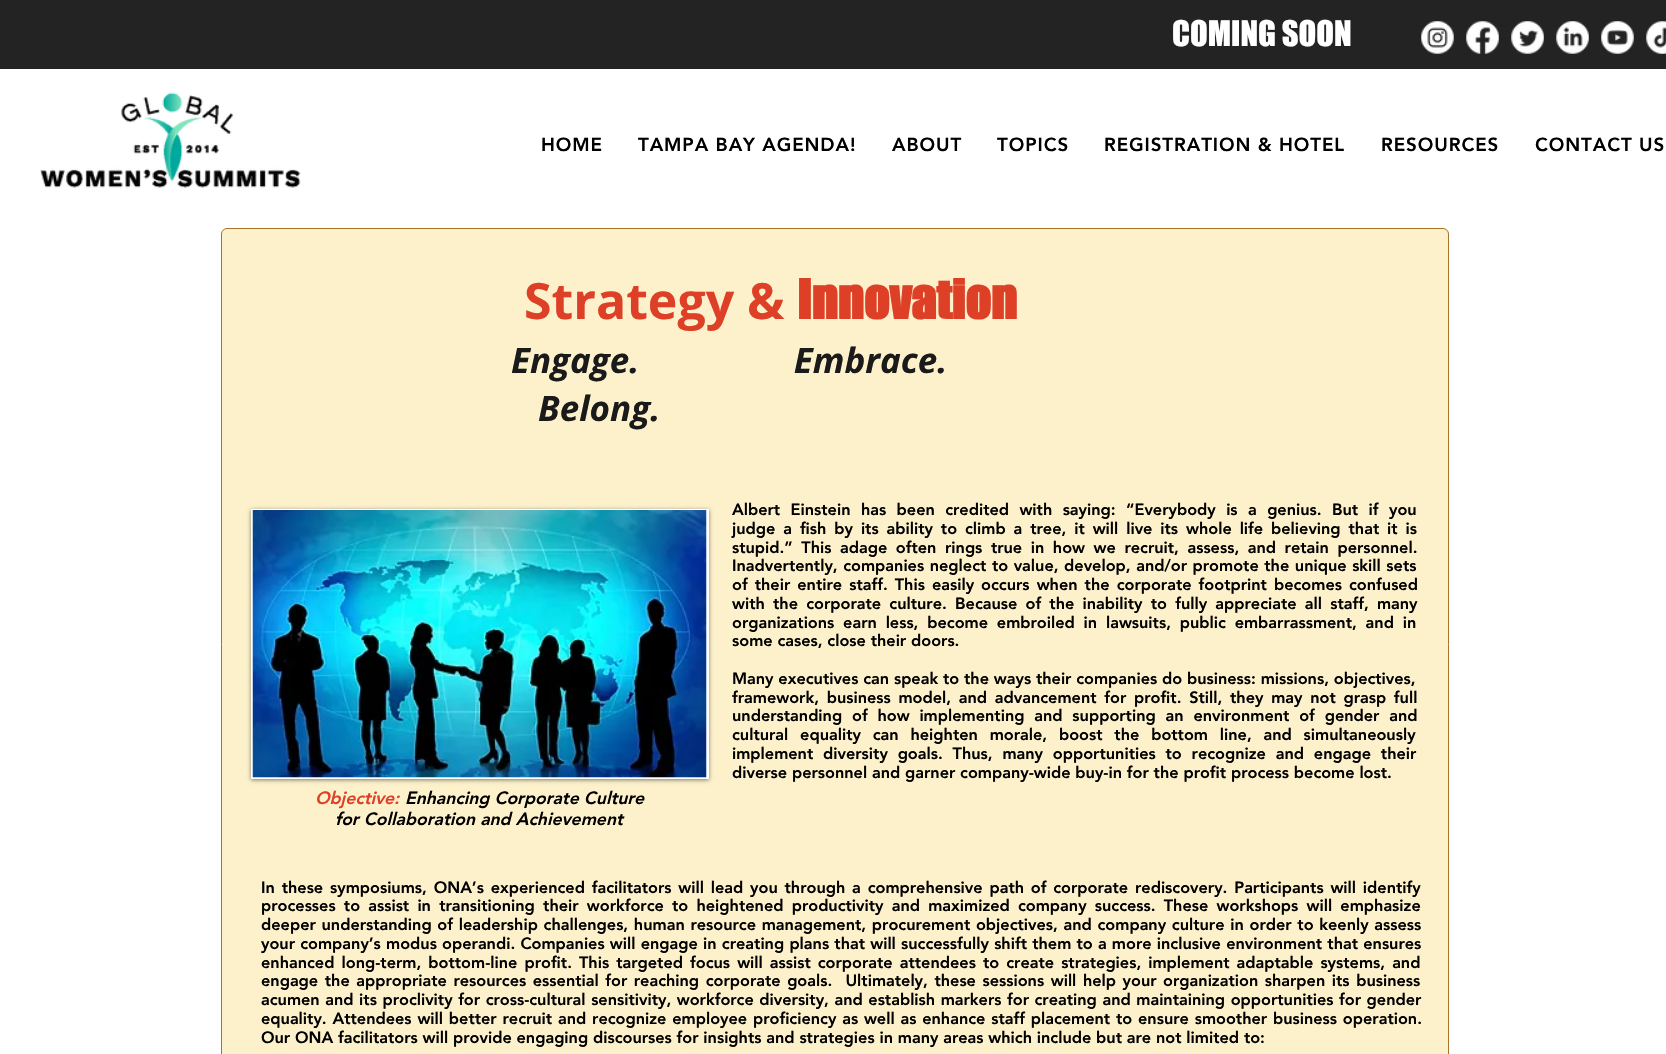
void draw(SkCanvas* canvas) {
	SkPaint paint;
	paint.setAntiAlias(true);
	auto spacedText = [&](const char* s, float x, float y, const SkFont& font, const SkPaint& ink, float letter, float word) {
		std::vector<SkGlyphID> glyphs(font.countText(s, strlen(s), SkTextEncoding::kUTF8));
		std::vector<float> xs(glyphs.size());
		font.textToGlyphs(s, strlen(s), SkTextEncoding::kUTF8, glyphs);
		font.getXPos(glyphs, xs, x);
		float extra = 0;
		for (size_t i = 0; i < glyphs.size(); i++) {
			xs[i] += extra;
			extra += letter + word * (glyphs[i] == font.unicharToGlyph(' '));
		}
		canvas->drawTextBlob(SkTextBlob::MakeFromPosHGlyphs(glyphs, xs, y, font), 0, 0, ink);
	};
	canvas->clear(0xffffffff);
	paint.setColor(0xff242323);
	canvas->drawRect(SkRect::MakeXYWH(0, 0, 1666, 69), paint);
	SkFont f1(fontMgr->matchFamilyStyle("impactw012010", SkFontStyle::Normal()), 32.5);
	f1.setSubpixel(true);
	paint.setColor(0xffffffff);
	canvas->drawString("COMING SOON", 1172, 46, f1, paint);
	canvas->drawImageRect(SkImages::DeferredFromEncodedData(SkData::MakeFromFileName("img1.png")), SkRect::MakeXYWH(1421, 21, 33, 33), SkSamplingOptions());
	canvas->drawImageRect(SkImages::DeferredFromEncodedData(SkData::MakeFromFileName("img2.png")), SkRect::MakeXYWH(1466, 21, 33, 33), SkSamplingOptions());
	canvas->drawImageRect(SkImages::DeferredFromEncodedData(SkData::MakeFromFileName("img3.png")), SkRect::MakeXYWH(1511, 21, 33, 33), SkSamplingOptions());
	canvas->drawImageRect(SkImages::DeferredFromEncodedData(SkData::MakeFromFileName("img4.png")), SkRect::MakeXYWH(1556, 21, 33, 33), SkSamplingOptions());
	canvas->drawImageRect(SkImages::DeferredFromEncodedData(SkData::MakeFromFileName("img5.png")), SkRect::MakeXYWH(1601, 21, 33, 33), SkSamplingOptions());
	canvas->drawImageRect(SkImages::DeferredFromEncodedData(SkData::MakeFromFileName("img6.png")), SkRect::MakeXYWH(1646, 21, 20, 33), SkSamplingOptions());
	canvas->drawImageRect(SkImages::DeferredFromEncodedData(SkData::MakeFromFileName("img7.png")), SkRect::MakeXYWH(40, 92, 261, 96), SkSamplingOptions());
	SkFont f2(fontMgr->matchFamilyStyle("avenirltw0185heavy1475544", SkFontStyle(900, SkFontStyle::kNormal_Width, SkFontStyle::kUpright_Slant)), 18.75);
	f2.setSubpixel(true);
	paint.setColor(0xff000000);
	spacedText("HOME", 541, 151, f2, paint, 0.9, 0);
	spacedText("TAMPA BAY AGENDA!", 638, 151, f2, paint, 0.9, 0);
	spacedText("ABOUT", 892, 151, f2, paint, 0.9, 0);
	spacedText("TOPICS", 997, 151, f2, paint, 0.9, 0);
	spacedText("REGISTRATION & HOTEL", 1104, 151, f2, paint, 0.9, 0);
	spacedText("RESOURCES", 1381, 151, f2, paint, 0.9, 0);
	spacedText("CONTACT US", 1535, 151, f2, paint, 0.9, 0);
	paint.setColor(0xfffdf1cb);
	canvas->drawRoundRect(SkRect::MakeXYWH(221.5, 228.5, 1227, 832), 5.5, 5.5, paint);
	paint.setStroke(true);
	paint.setStrokeWidth(1);
	paint.setColor(0xffa67327);
	canvas->drawRoundRect(SkRect::MakeXYWH(221.5, 228.5, 1227, 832), 5.5, 5.5, paint);
	SkFont f3(fontMgr->matchFamilyStyle("Open Sans", SkFontStyle::Bold()), 50);
	f3.setSubpixel(true);
	paint.setStroke(false);
	paint.setColor(0xffdd4027);
	canvas->drawString("Strategy &", 524, 319, f3, paint);
	SkFont f4(fontMgr->matchFamilyStyle("impactw012010", SkFontStyle::Bold()), 50);
	f4.setSubpixel(true);
	canvas->drawString("Innovation", 797, 319, f4, paint);
	SkFont f5(fontMgr->matchFamilyStyle("Open Sans", SkFontStyle::BoldItalic()), 35);
	f5.setSubpixel(true);
	paint.setColor(0xff1a1a1a);
	canvas->drawString("Engage.                 Embrace.", 511, 373, f5, paint);
	canvas->drawString("Belong.", 538, 421, f5, paint);
	paint.setColor(0x80000000);
	paint.setMaskFilter(SkMaskFilter::MakeBlur(kNormal_SkBlurStyle, 2));
	canvas->drawRect(SkRect::MakeXYWH(251, 510, 458, 270), paint);
	paint.setMaskFilter(nullptr);
	paint.setColor(0xffffffff);
	canvas->drawRect(SkRect::MakeXYWH(251, 509, 458, 270), paint);
	canvas->drawImageRect(SkImages::DeferredFromEncodedData(SkData::MakeFromFileName("img8.png")), SkRect::MakeXYWH(252, 510, 455, 268), SkSamplingOptions());
	SkFont f6(fontMgr->matchFamilyStyle("avenirltw0185heavy1475544", SkFontStyle(900, SkFontStyle::kNormal_Width, SkFontStyle::kUpright_Slant)), 16.25);
	f6.setSubpixel(true);
	paint.setColor(0xff000000);
	spacedText("Albert Einstein has been credited with saying: “Everybody is a genius. But if you", 732, 515, f6, paint, 0, 5.6);
	spacedText("judge a fish by its ability to climb a tree, it will live its whole life believing that it is", 732, 534, f6, paint, 0, 3.1);
	spacedText("stupid.” This adage often rings true in how we recruit, assess, and retain personnel.", 732, 553, f6, paint, 0, 3.75);
	spacedText("Inadvertently, companies neglect to value, develop, and/or promote the unique skill sets", 732, 571, f6, paint, 0, 0.75);
	spacedText("of their entire staff. This easily occurs when the corporate footprint becomes confused", 732, 590, f6, paint, 0, 2.25);
	spacedText("with the corporate culture. Because of the inability to fully appreciate all staff, many", 732, 609, f6, paint, 0, 3.4);
	spacedText("organizations earn less, become embroiled in lawsuits, public embarrassment, and in", 732, 628, f6, paint, 0, 4);
	canvas->drawString("some cases, close their doors.", 732, 646, f6, paint);
	canvas->drawString("Many executives can speak to the ways their companies do business: missions, objectives,", 732, 684, f6, paint);
	spacedText("framework, business model, and advancement for profit. Still, they may not grasp full", 732, 703, f6, paint, 0, 2.9);
	spacedText("understanding of how implementing and supporting an environment of gender and", 732, 721, f6, paint, 0, 5);
	spacedText("cultural equality can heighten morale, boost the bottom line, and simultaneously", 732, 740, f6, paint, 0, 7);
	spacedText("implement diversity goals. Thus, many opportunities to recognize and engage their", 732, 759, f6, paint, 0, 5);
	canvas->drawString("diverse personnel and garner company-wide buy-in for the profit process become lost.", 732, 778, f6, paint);
	SkFont f7(fontMgr->matchFamilyStyle("avenirltw0185heavy1475544", SkFontStyle(900, SkFontStyle::kNormal_Width, SkFontStyle::kItalic_Slant)), 17.5);
	f7.setSubpixel(true);
	paint.setColor(0xffdd4027);
	canvas->drawString("Objective:", 315, 804, f7, paint);
	paint.setColor(0xff000000);
	canvas->drawString("Enhancing Corporate Culture", 405, 804, f7, paint);
	canvas->drawString("for Collaboration and Achievement", 335, 825, f7, paint);
	spacedText("In these symposiums, ONA’s experienced facilitators will lead you through a comprehensive path of corporate rediscovery. Participants will identify", 261, 893, f6, paint, 0, 2);
	spacedText("processes to assist in transitioning their workforce to heightened productivity and maximized company success. These workshops will emphasize", 261, 911, f6, paint, 0, 3.4);
	spacedText("deeper understanding of leadership challenges, human resource management, procurement objectives, and company culture in order to keenly assess", 261, 930, f6, paint, 0, 0.9);
	spacedText("your company’s modus operandi. Companies will engage in creating plans that will successfully shift them to a more inclusive environment that ensures", 261, 949, f6, paint, 0, 0.4);
	spacedText("enhanced long-term, bottom-line profit. This targeted focus will assist corporate attendees to create strategies, implement adaptable systems, and", 261, 968, f6, paint, 0, 2.25);
	spacedText("engage the appropriate resources essential for reaching corporate goals.  Ultimately, these sessions will help your organization sharpen its business", 261, 986, f6, paint, 0, 1.75);
	spacedText("acumen and its proclivity for cross-cultural sensitivity, workforce diversity, and establish markers for creating and maintaining opportunities for gender", 261, 1005, f6, paint, 0, 0.75);
	spacedText("equality. Attendees will better recruit and recognize employee proficiency as well as enhance staff placement to ensure smoother business operation.", 261, 1024, f6, paint, 0, 1);
	canvas->drawString("Our ONA facilitators will provide engaging discourses for insights and strategies in many areas which include but are not limited to:", 261, 1043, f6, paint);
}
